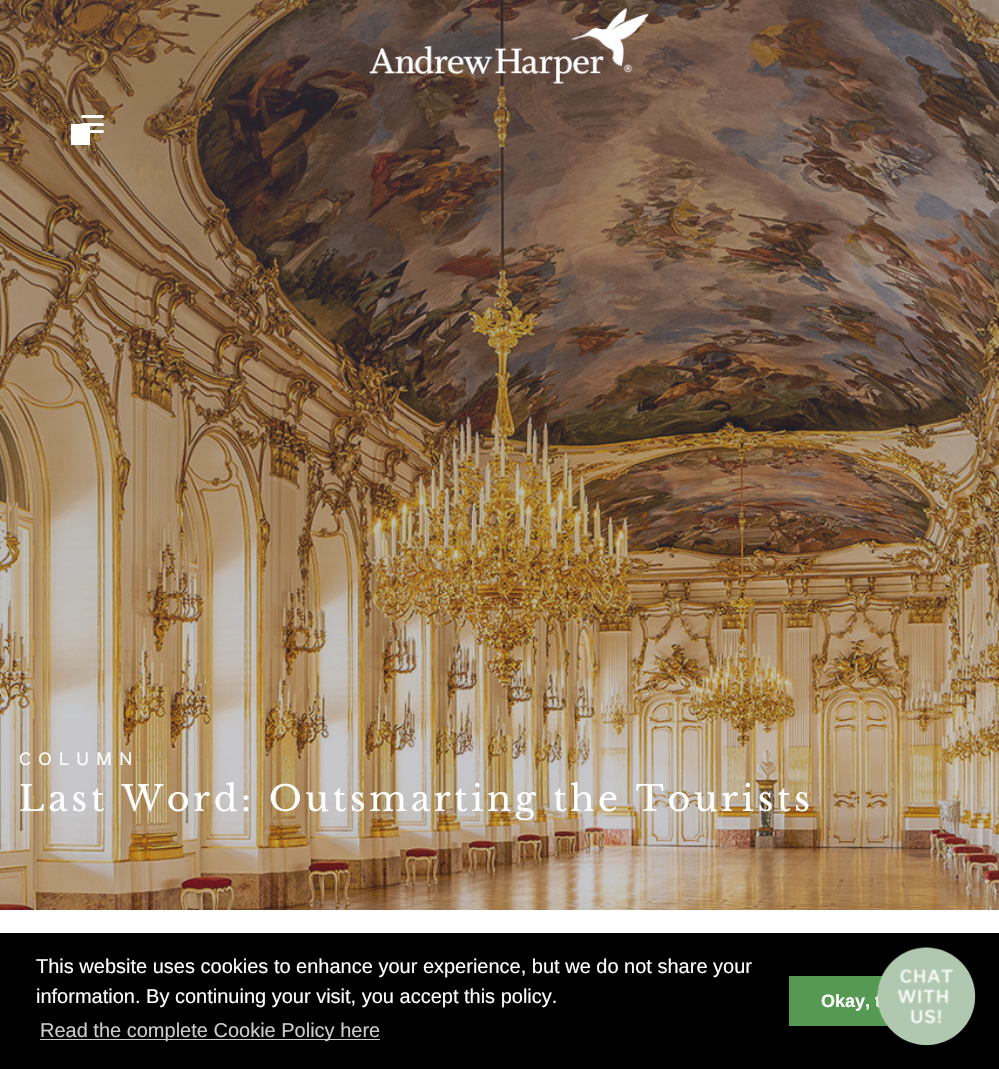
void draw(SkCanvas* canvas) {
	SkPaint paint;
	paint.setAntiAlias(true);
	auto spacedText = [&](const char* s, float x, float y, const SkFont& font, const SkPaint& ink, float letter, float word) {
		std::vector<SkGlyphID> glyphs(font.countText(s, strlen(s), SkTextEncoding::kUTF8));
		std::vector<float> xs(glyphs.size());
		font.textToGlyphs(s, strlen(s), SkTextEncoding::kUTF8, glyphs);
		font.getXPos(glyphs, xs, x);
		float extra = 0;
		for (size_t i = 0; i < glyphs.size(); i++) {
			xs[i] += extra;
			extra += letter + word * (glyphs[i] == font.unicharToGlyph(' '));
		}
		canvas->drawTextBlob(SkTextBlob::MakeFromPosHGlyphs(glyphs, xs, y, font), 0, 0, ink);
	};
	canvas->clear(0xffffffff);
	canvas->drawImageRect(SkImages::DeferredFromEncodedData(SkData::MakeFromFileName("img2.png")), SkRect::MakeXYWH(0, 0, 999, 910), SkSamplingOptions());
	canvas->drawImageRect(SkImages::DeferredFromEncodedData(SkData::MakeFromFileName("img1.png")), SkRect::MakeXYWH(369, 8, 280, 76), SkSamplingOptions());
	paint.setColor(0xffffffff);
	canvas->drawRoundRect(SkRect::MakeXYWH(81, 123, 23, 3), 1.5, 1.5, paint);
	canvas->drawRoundRect(SkRect::MakeXYWH(81, 130, 23, 3), 1.5, 1.5, paint);
	canvas->drawRect(SkRect::MakeXYWH(71, 124, 19, 21), paint);
	canvas->drawRoundRect(SkRect::MakeXYWH(81, 115, 23, 3), 1.5, 1.5, paint);
	SkFont f1(fontMgr->matchFamilyStyle("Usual", SkFontStyle::Normal()), 16.25);
	f1.setSubpixel(true);
	spacedText("COLUMN", 19, 765, f1, paint, 7.5, 0);
	SkFont f2(fontMgr->matchFamilyStyle("Libre Baskerville", SkFontStyle::Normal()), 35);
	f2.setSubpixel(true);
	spacedText("Last Word: Outsmarting the Tourists", 19, 811, f2, paint, 3.75, 0);
	paint.setColor(0xff000000);
	canvas->drawRect(SkRect::MakeXYWH(0, 933, 999, 136), paint);
	SkFont f3(fontMgr->matchFamilyStyle("Liberation Sans", SkFontStyle::Normal()), 20);
	f3.setSubpixel(true);
	paint.setColor(0xffffffff);
	canvas->drawString("This website uses cookies to enhance your experience, but we do not share your", 36, 973, f3, paint);
	canvas->drawString("information. By continuing your visit, you accept this policy.", 36, 1003, f3, paint);
	paint.setColor(0xffcccccc);
	canvas->drawRect(SkRect::MakeXYWH(40, 1039, 340, 1), paint);
	canvas->drawString("Read the complete Cookie Policy here", 40, 1037, f3, paint);
	paint.setColor(0xff569952);
	canvas->drawRect(SkRect::MakeXYWH(789, 976, 99, 50), paint);
	SkFont f4(fontMgr->matchFamilyStyle("Liberation Sans", SkFontStyle::Bold()), 18);
	f4.setSubpixel(true);
	paint.setColor(0xffffffff);
	canvas->drawString("Okay, t", 821, 1007, f4, paint);
	paint.setColor(0xffb1c9b0);
	canvas->drawCircle(926.5, 996.5, 48.5, paint);
	canvas->drawImageRect(SkImages::DeferredFromEncodedData(SkData::MakeFromFileName("img3.png")), SkRect::MakeXYWH(877, 947, 99, 99), SkSamplingOptions());
}
